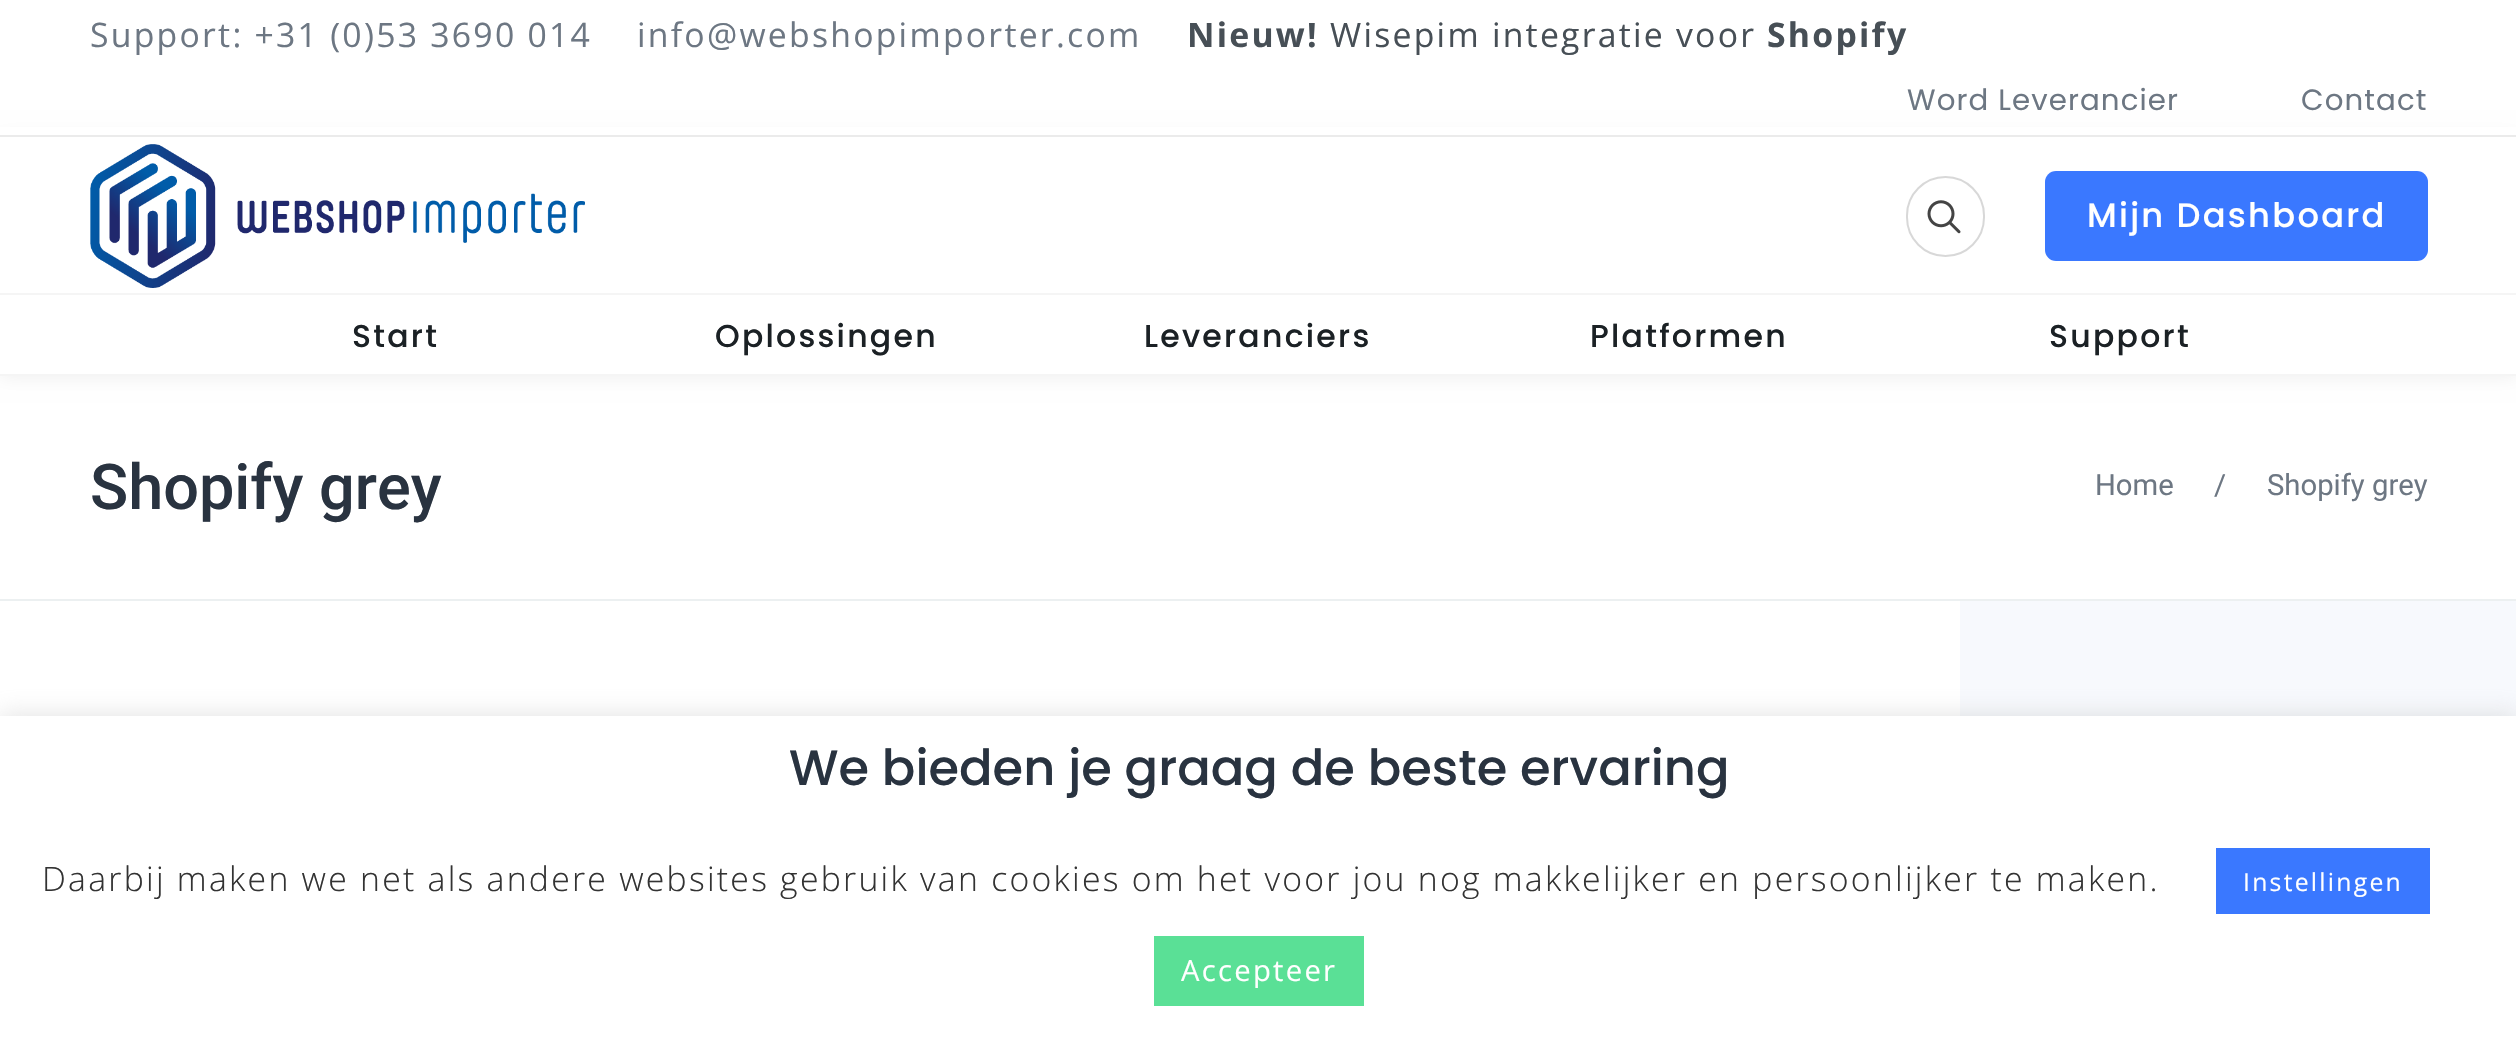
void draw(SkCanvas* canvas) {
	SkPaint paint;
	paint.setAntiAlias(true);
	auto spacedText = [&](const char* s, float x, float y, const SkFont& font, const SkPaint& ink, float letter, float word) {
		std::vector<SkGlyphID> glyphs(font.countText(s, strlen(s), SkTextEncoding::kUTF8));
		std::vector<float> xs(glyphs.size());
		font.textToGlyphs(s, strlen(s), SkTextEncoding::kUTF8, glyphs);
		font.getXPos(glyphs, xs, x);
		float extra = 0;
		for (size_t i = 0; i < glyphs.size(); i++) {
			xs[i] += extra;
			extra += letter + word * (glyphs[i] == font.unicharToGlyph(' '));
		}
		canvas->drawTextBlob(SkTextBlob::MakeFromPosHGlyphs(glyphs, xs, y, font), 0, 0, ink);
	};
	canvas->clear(0xffffffff);
	paint.setColor(0x12000000);
	paint.setMaskFilter(SkMaskFilter::MakeBlur(kNormal_SkBlurStyle, 9));
	canvas->drawRect(SkRect::MakeXYWH(0, 137, 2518, 239), paint);
	paint.setMaskFilter(nullptr);
	paint.setColor(0xffffffff);
	canvas->drawRect(SkRect::MakeXYWH(0, 127, 2516, 8), paint);
	paint.setColor(0xffebebeb);
	canvas->drawRect(SkRect::MakeXYWH(0, 135, 2516, 2), paint);
	SkFont f1(fontMgr->matchFamilyStyle("Open Sans", SkFontStyle::Normal()), 33.75);
	f1.setSubpixel(true);
	paint.setColor(0xff6d7783);
	spacedText("Support: +31 (0)53 3690 014", 90, 47, f1, paint, 2.25, 0);
	spacedText("info@webshopimporter.com", 637, 47, f1, paint, 2.25, 0);
	SkFont f2(fontMgr->matchFamilyStyle("Open Sans", SkFontStyle::Bold()), 33.75);
	f2.setSubpixel(true);
	paint.setColor(0xff474f56);
	spacedText("Nieuw!", 1187, 47, f2, paint, 2.25, 0);
	spacedText("Wisepim integratie voor", 1330, 47, f1, paint, 2.25, 0);
	spacedText("Shopify", 1767, 47, f2, paint, 2.25, 0);
	SkFont f3(fontMgr->matchFamilyStyle("Poppins", SkFontStyle::Normal()), 29.25);
	f3.setSubpixel(true);
	paint.setColor(0xff6d7783);
	spacedText("Word Leverancier", 1907, 110, f3, paint, 1.1, 0);
	spacedText("Contact", 2301, 110, f3, paint, 1.1, 0);
	paint.setColor(0xffffffff);
	canvas->drawRect(SkRect::MakeXYWH(0, 137, 2516, 156), paint);
	paint.setColor(0xfff5f5f5);
	canvas->drawRect(SkRect::MakeXYWH(0, 293, 2516, 2), paint);
	canvas->drawImageRect(SkImages::DeferredFromEncodedData(SkData::MakeFromFileName("img1.png")), SkRect::MakeXYWH(90, 144, 495, 144), SkSamplingOptions());
	paint.setStroke(true);
	paint.setStrokeWidth(2);
	paint.setColor(0xffd8d8d8);
	canvas->drawRoundRect(SkRect::MakeXYWH(1907, 177, 77, 79), 38.5, 38.5, paint);
	canvas->drawImageRect(SkImages::DeferredFromEncodedData(SkData::MakeFromFileName("img2.png")), SkRect::MakeXYWH(1927, 200, 34, 34), SkSamplingOptions());
	paint.setStroke(false);
	paint.setColor(0xff3a78ff);
	canvas->drawRoundRect(SkRect::MakeXYWH(2045, 171, 383, 90), 11, 11, paint);
	SkFont f4(fontMgr->matchFamilyStyle("Poppins", SkFontStyle(500, SkFontStyle::kNormal_Width, SkFontStyle::kUpright_Slant)), 33.75);
	f4.setSubpixel(true);
	paint.setColor(0xffffffff);
	spacedText("Mijn Dashboard", 2087, 227, f4, paint, 2.25, 0);
	canvas->drawRect(SkRect::MakeXYWH(0, 295, 2516, 79), paint);
	paint.setColor(0xfff5f5f5);
	canvas->drawRect(SkRect::MakeXYWH(0, 374, 2516, 2), paint);
	SkFont f5(fontMgr->matchFamilyStyle("Poppins", SkFontStyle(500, SkFontStyle::kNormal_Width, SkFontStyle::kUpright_Slant)), 31.5);
	f5.setSubpixel(true);
	paint.setColor(0xff1b2125);
	spacedText("Start", 352, 347, f5, paint, 2.25, 0);
	spacedText("Oplossingen", 715, 347, f5, paint, 2.25, 0);
	spacedText("Leveranciers", 1144, 347, f5, paint, 2.25, 0);
	spacedText("Platformen", 1590, 347, f5, paint, 2.25, 0);
	spacedText("Support", 2049, 347, f5, paint, 2.25, 0);
	paint.setColor(0xffecf0f1);
	canvas->drawRect(SkRect::MakeXYWH(0, 599, 2516, 2), paint);
	SkFont f6(fontMgr->matchFamilyStyle("Roboto", SkFontStyle(500, SkFontStyle::kNormal_Width, SkFontStyle::kUpright_Slant)), 63);
	f6.setSubpixel(true);
	paint.setColor(0xff293340);
	canvas->drawString("Shopify grey", 90, 509, f6, paint);
	SkFont f7(fontMgr->matchFamilyStyle("Roboto", SkFontStyle::Normal()), 29.25);
	f7.setSubpixel(true);
	paint.setColor(0xff6d7783);
	canvas->drawString("Home", 2095, 495, f7, paint);
	canvas->drawString("/", 2214, 495, f7, paint);
	canvas->drawString("Shopify grey", 2267, 495, f7, paint);
	paint.setColor(0xfff7f9fd);
	canvas->drawRect(SkRect::MakeXYWH(1960, 601, 556, 115), paint);
	paint.setColor(0x4dacabab);
	paint.setMaskFilter(SkMaskFilter::MakeBlur(kNormal_SkBlurStyle, 11));
	canvas->drawRect(SkRect::MakeXYWH(0, 713, 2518, 329), paint);
	paint.setMaskFilter(nullptr);
	paint.setColor(0xffffffff);
	canvas->drawRect(SkRect::MakeXYWH(0, 716, 2516, 328), paint);
	SkFont f8(fontMgr->matchFamilyStyle("Poppins", SkFontStyle(500, SkFontStyle::kNormal_Width, SkFontStyle::kUpright_Slant)), 49.5);
	f8.setSubpixel(true);
	paint.setColor(0xff293340);
	canvas->drawString("We bieden je graag de beste ervaring", 789, 785, f8, paint);
	SkFont f9(fontMgr->matchFamilyStyle("Open Sans", SkFontStyle(300, SkFontStyle::kNormal_Width, SkFontStyle::kUpright_Slant)), 33.75);
	f9.setSubpixel(true);
	paint.setColor(0xff333333);
	spacedText("Daarbij maken we net als andere websites gebruik van cookies om het voor jou nog makkelijker en persoonlijker te maken.", 42, 891, f9, paint, 2.25, 0);
	paint.setColor(0xff3a78ff);
	canvas->drawRect(SkRect::MakeXYWH(2216, 848, 214, 66), paint);
	SkFont f10(fontMgr->matchFamilyStyle("Open Sans", SkFontStyle::Normal()), 24.75);
	f10.setSubpixel(true);
	paint.setColor(0xffffffff);
	spacedText("Instellingen", 2243, 891, f10, paint, 2.25, 0);
	paint.setColor(0xff5ae096);
	canvas->drawRect(SkRect::MakeXYWH(1154, 936, 210, 70), paint);
	SkFont f11(fontMgr->matchFamilyStyle("Open Sans", SkFontStyle::Normal()), 29.25);
	f11.setSubpixel(true);
	paint.setColor(0xffffffff);
	spacedText("Accepteer", 1181, 981, f11, paint, 2.25, 0);
}
